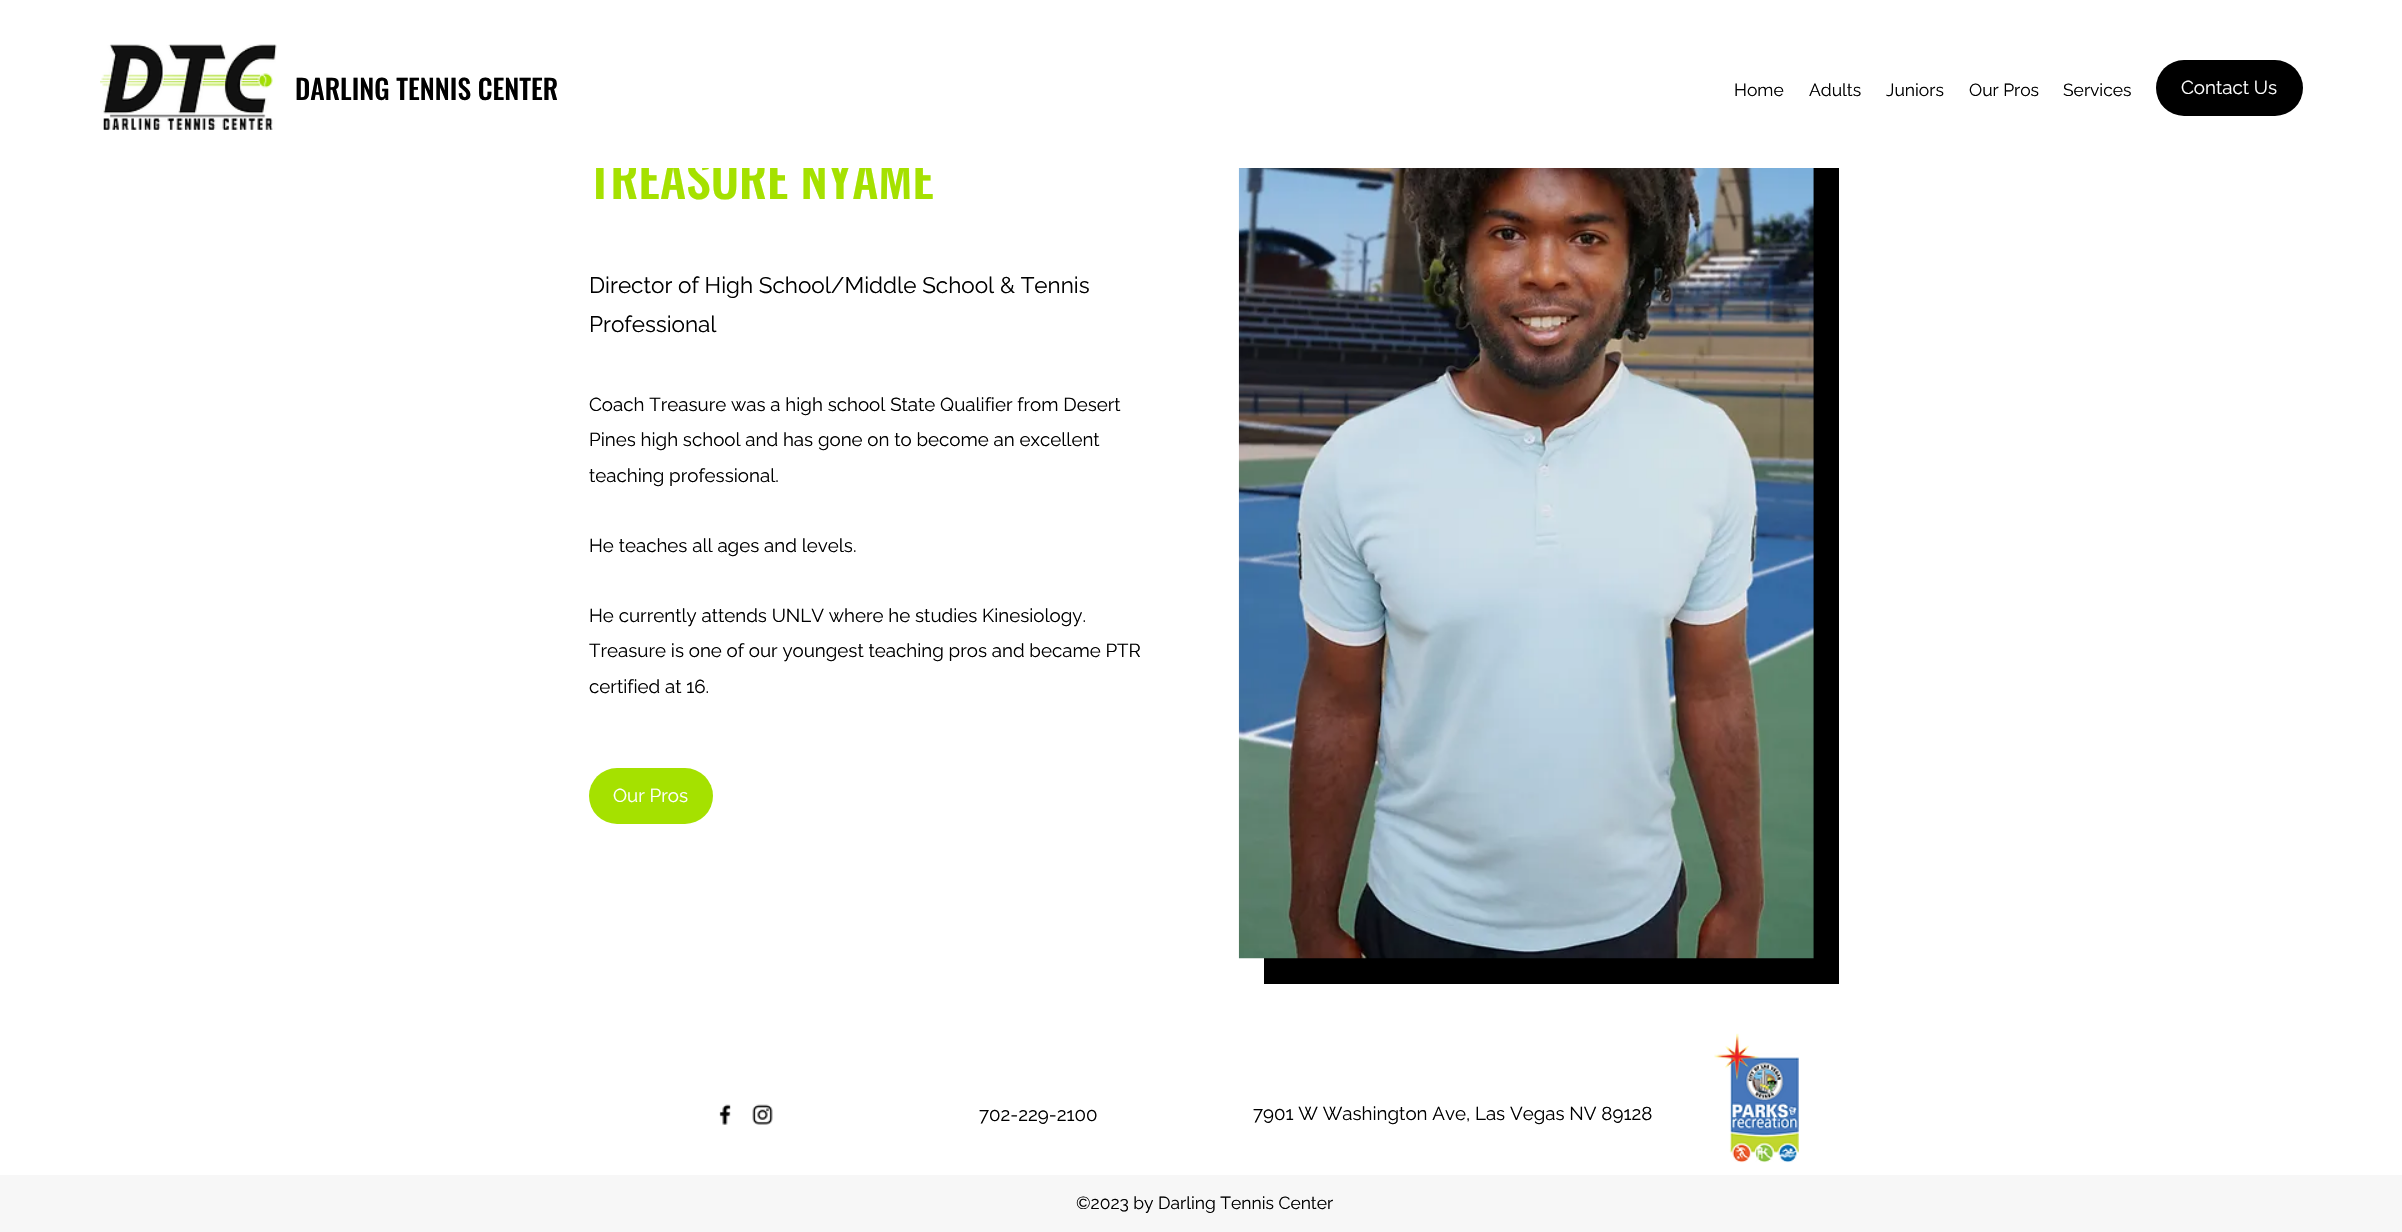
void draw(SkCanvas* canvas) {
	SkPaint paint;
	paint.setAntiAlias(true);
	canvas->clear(0xffffffff);
	canvas->drawImageRect(SkImages::DeferredFromEncodedData(SkData::MakeFromFileName("img1.png")), SkRect::MakeXYWH(100, 44, 177, 86), SkSamplingOptions());
	SkFont f1(fontMgr->matchFamilyStyle("Oswald", SkFontStyle(500, SkFontStyle::kNormal_Width, SkFontStyle::kUpright_Slant)), 27.5);
	f1.setSubpixel(true);
	paint.setColor(0xff000000);
	canvas->drawString("DARLING TENNIS CENTER", 295, 100, f1, paint);
	SkFont f2(fontMgr->matchFamilyStyle("Raleway", SkFontStyle::Normal()), 17.5);
	f2.setSubpixel(true);
	canvas->drawString("Home", 1734, 96, f2, paint);
	canvas->drawString("Adults", 1809, 96, f2, paint);
	canvas->drawString("Juniors", 1886, 96, f2, paint);
	canvas->drawString("Our Pros", 1969, 96, f2, paint);
	canvas->drawString("Services", 2063, 96, f2, paint);
	canvas->drawRoundRect(SkRect::MakeXYWH(2156, 60, 147, 56), 28, 28, paint);
	SkFont f3(fontMgr->matchFamilyStyle("Raleway", SkFontStyle::Normal()), 18.75);
	f3.setSubpixel(true);
	paint.setColor(0xffffffff);
	canvas->drawString("Contact Us", 2181, 94, f3, paint);
	SkFont f4(fontMgr->matchFamilyStyle("Oswald", SkFontStyle(500, SkFontStyle::kNormal_Width, SkFontStyle::kUpright_Slant)), 50);
	f4.setSubpixel(true);
	paint.setColor(0xffa5e100);
	canvas->drawString("TREASURE NYAME", 589, 199, f4, paint);
	paint.setColor(0xffffffff);
	canvas->drawRect(SkRect::MakeXYWH(589, 158, 344, 10), paint);
	SkFont f5(fontMgr->matchFamilyStyle("Raleway", SkFontStyle::Normal()), 22.5);
	f5.setSubpixel(true);
	paint.setColor(0xff000000);
	canvas->drawString("Director of High School/Middle School & Tennis", 589, 293, f5, paint);
	canvas->drawString("Professional", 589, 332, f5, paint);
	canvas->drawString("Coach Treasure was a high school State Qualifier from Desert", 589, 411, f3, paint);
	canvas->drawString("Pines high school and has gone on to become an excellent", 589, 446, f3, paint);
	canvas->drawString("teaching professional.", 589, 482, f3, paint);
	canvas->drawString("He teaches all ages and levels.", 589, 552, f3, paint);
	canvas->drawString("He currently attends UNLV where he studies Kinesiology.", 589, 622, f3, paint);
	canvas->drawString("Treasure is one of our youngest teaching pros and became PTR", 589, 657, f3, paint);
	canvas->drawString("certified at 16.", 589, 693, f3, paint);
	paint.setColor(0xffa5e100);
	canvas->drawRoundRect(SkRect::MakeXYWH(589, 768, 124, 56), 28, 28, paint);
	paint.setColor(0xffffffff);
	canvas->drawString("Our Pros", 613, 802, f3, paint);
	paint.setColor(0xff000000);
	canvas->drawRect(SkRect::MakeXYWH(1264, 168, 575, 816), paint);
	canvas->drawImageRect(SkImages::DeferredFromEncodedData(SkData::MakeFromFileName("img2.png")), SkRect::MakeXYWH(1238, 168, 576, 791), SkSamplingOptions());
	canvas->drawImageRect(SkImages::DeferredFromEncodedData(SkData::MakeFromFileName("img3.png")), SkRect::MakeXYWH(719, 1104, 12, 21), SkSamplingOptions());
	canvas->drawImageRect(SkImages::DeferredFromEncodedData(SkData::MakeFromFileName("img4.png")), SkRect::MakeXYWH(752, 1104, 21, 21), SkSamplingOptions());
	canvas->drawString("702-229-2100", 979, 1121, f3, paint);
	canvas->drawString("7901 W Washington Ave, Las Vegas NV 89128", 1253, 1120, f3, paint);
	canvas->drawImageRect(SkImages::DeferredFromEncodedData(SkData::MakeFromFileName("img5.png")), SkRect::MakeXYWH(1714, 1033, 85, 130), SkSamplingOptions());
	paint.setColor(0xfff7f7f7);
	canvas->drawRect(SkRect::MakeXYWH(0, 1175, 2402, 57), paint);
	paint.setColor(0xff000000);
	canvas->drawString("©2023 by Darling Tennis Center", 1076, 1209, f2, paint);
}
